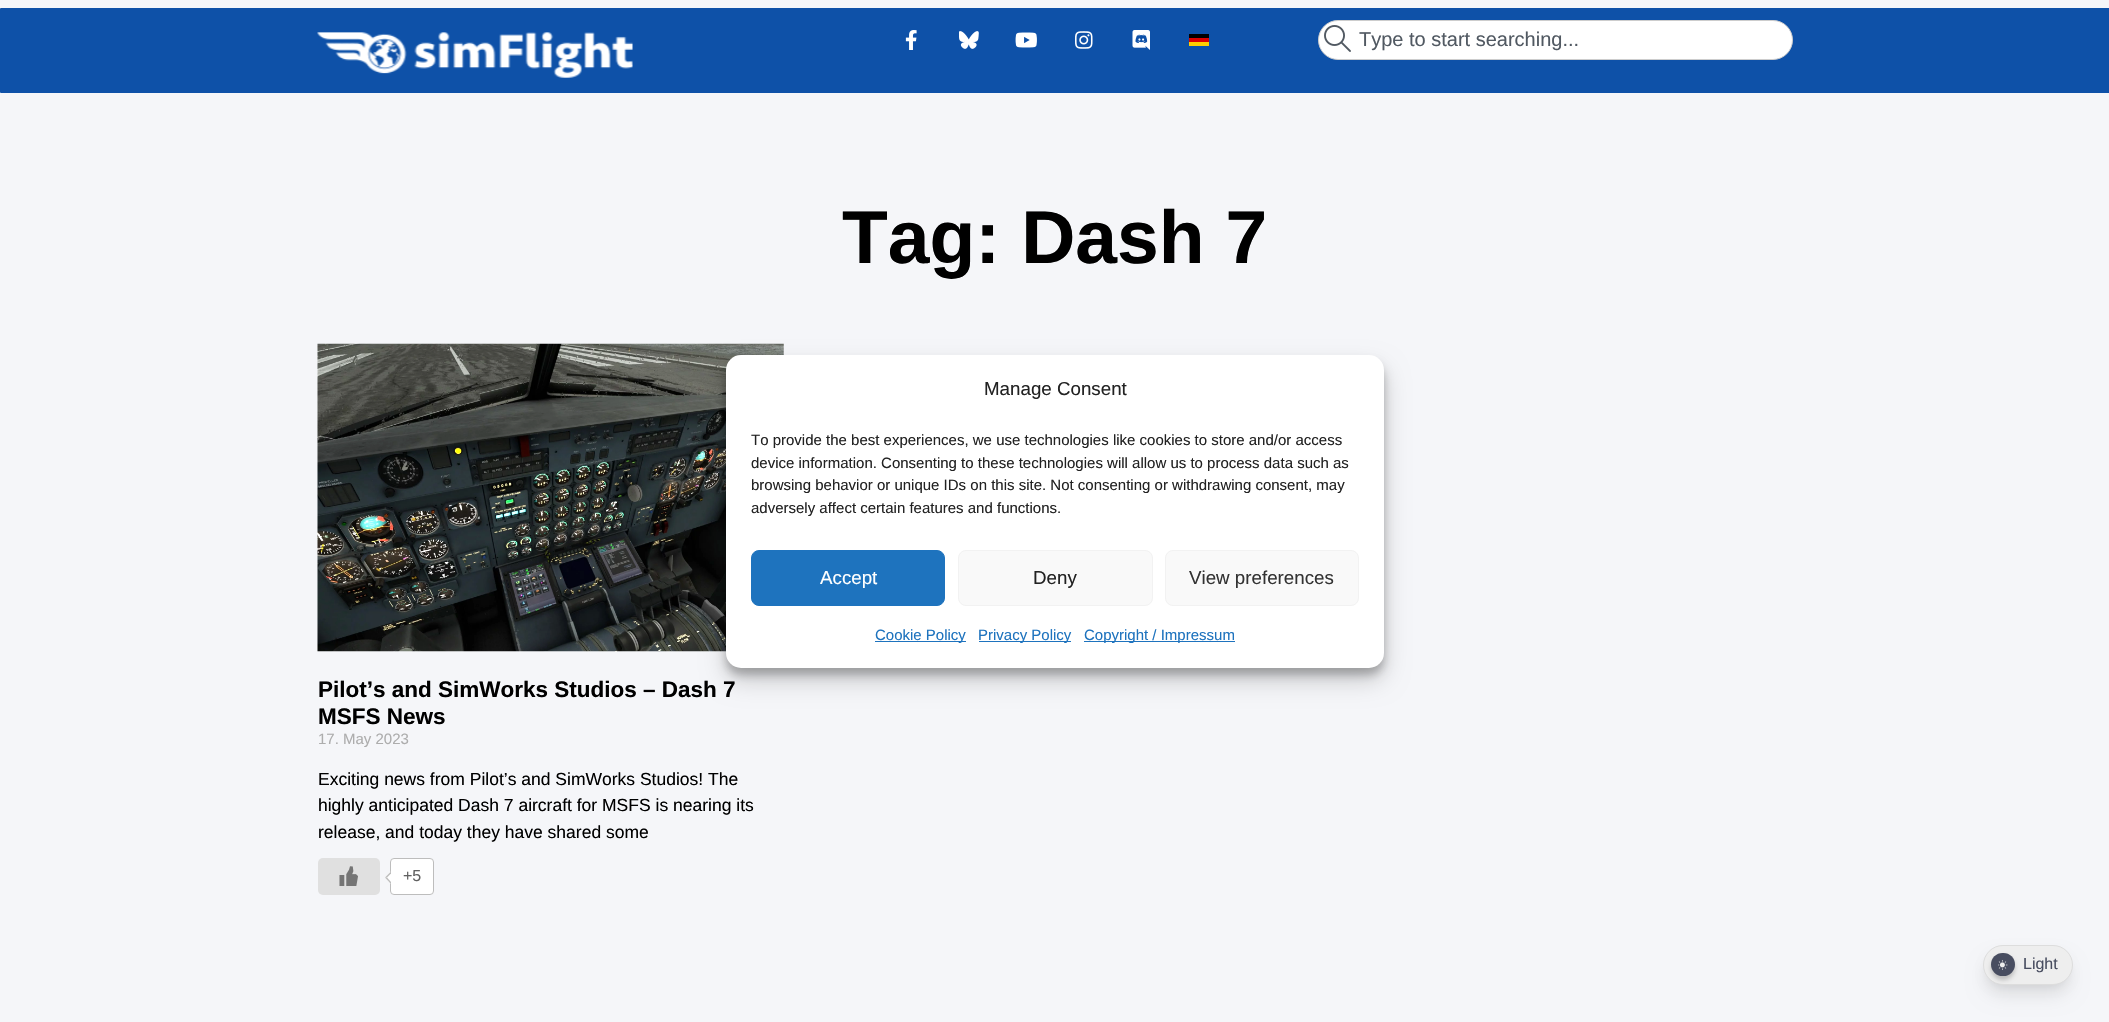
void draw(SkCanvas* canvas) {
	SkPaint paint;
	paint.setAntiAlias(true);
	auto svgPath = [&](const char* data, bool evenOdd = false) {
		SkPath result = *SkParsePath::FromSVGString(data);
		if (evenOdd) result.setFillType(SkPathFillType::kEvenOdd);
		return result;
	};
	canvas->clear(0xfff5f6f9);
	paint.setColor(0xff0e51a8);
	canvas->drawRoundRect(SkRect::MakeXYWH(0, 8, 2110, 85), 1, 1, paint);
	canvas->drawImageRect(SkImages::DeferredFromEncodedData(SkData::MakeFromFileName("img1.png")), SkRect::MakeXYWH(317, 32, 316, 46), SkSamplingOptions());
	canvas->drawImageRect(SkImages::DeferredFromEncodedData(SkData::MakeFromFileName("img2.png")), SkRect::MakeXYWH(905, 30, 12, 20), SkSamplingOptions());
	canvas->drawImageRect(SkImages::DeferredFromEncodedData(SkData::MakeFromFileName("img3.png")), SkRect::MakeXYWH(959, 31, 20, 18), SkSamplingOptions());
	canvas->drawImageRect(SkImages::DeferredFromEncodedData(SkData::MakeFromFileName("img4.png")), SkRect::MakeXYWH(1015, 32, 22, 16), SkSamplingOptions());
	canvas->drawImageRect(SkImages::DeferredFromEncodedData(SkData::MakeFromFileName("img5.png")), SkRect::MakeXYWH(1075, 31, 18, 18), SkSamplingOptions());
	canvas->drawImageRect(SkImages::DeferredFromEncodedData(SkData::MakeFromFileName("img6.png")), SkRect::MakeXYWH(1132, 30, 18, 20), SkSamplingOptions());
	paint.setColor(0xff000000);
	canvas->drawRect(SkRect::MakeXYWH(1189, 34, 20, 4), paint);
	paint.setColor(0xffdd0000);
	canvas->drawRect(SkRect::MakeXYWH(1189, 38, 20, 4), paint);
	paint.setColor(0xffffce00);
	canvas->drawRect(SkRect::MakeXYWH(1189, 42, 20, 4), paint);
	paint.setColor(0xffffffff);
	canvas->drawRoundRect(SkRect::MakeXYWH(1318.5, 20.5, 474, 39), 19.5, 19.5, paint);
	paint.setStroke(true);
	paint.setStrokeWidth(1);
	paint.setColor(0xffcdcdcd);
	canvas->drawRoundRect(SkRect::MakeXYWH(1318.5, 20.5, 474, 39), 19.5, 19.5, paint);
	canvas->drawImageRect(SkImages::DeferredFromEncodedData(SkData::MakeFromFileName("img7.png")), SkRect::MakeXYWH(1324, 25, 27, 27), SkSamplingOptions());
	SkFont f1(fontMgr->matchFamilyStyle("Liberation Sans", SkFontStyle::Normal()), 20);
	f1.setSubpixel(true);
	paint.setStroke(false);
	paint.setColor(0xff515962);
	canvas->drawString("Type to start searching...", 1359, 46, f1, paint);
	SkFont f2(fontMgr->matchFamilyStyle("Liberation Sans", SkFontStyle::Bold()), 75);
	f2.setSubpixel(true);
	paint.setColor(0xff000000);
	canvas->drawString("Tag: Dash 7", 842, 263, f2, paint);
	canvas->drawImageRect(SkImages::DeferredFromEncodedData(SkData::MakeFromFileName("img8.png")), SkRect::MakeXYWH(317, 343, 467, 309), SkSamplingOptions());
	SkFont f3(fontMgr->matchFamilyStyle("Liberation Sans", SkFontStyle::Bold()), 22.5);
	f3.setSubpixel(true);
	canvas->drawString("Pilot’s and SimWorks Studios – Dash 7", 318, 697, f3, paint);
	canvas->drawString("MSFS News", 318, 724, f3, paint);
	SkFont f4(fontMgr->matchFamilyStyle("Liberation Sans", SkFontStyle::Normal()), 15);
	f4.setSubpixel(true);
	paint.setColor(0xffadadad);
	canvas->drawString("17. May 2023", 318, 744, f4, paint);
	SkFont f5(fontMgr->matchFamilyStyle("Liberation Sans", SkFontStyle::Normal()), 17.5);
	f5.setSubpixel(true);
	paint.setColor(0xff000000);
	canvas->drawString("Exciting news from Pilot’s and SimWorks Studios! The", 318, 785, f5, paint);
	canvas->drawString("highly anticipated Dash 7 aircraft for MSFS is nearing its", 318, 811, f5, paint);
	canvas->drawString("release, and today they have shared some", 318, 838, f5, paint);
	paint.setColor(0xffe0e0e0);
	canvas->drawRoundRect(SkRect::MakeXYWH(318, 858, 62, 37), 5, 5, paint);
	canvas->drawImageRect(SkImages::DeferredFromEncodedData(SkData::MakeFromFileName("img9.png")), SkRect::MakeXYWH(339, 866, 19, 20), SkSamplingOptions());
	paint.setColor(0xffffffff);
	canvas->drawRoundRect(SkRect::MakeXYWH(390.5, 858.5, 43, 36), 3.5, 3.5, paint);
	paint.setStroke(true);
	paint.setColor(0xffbdbdbd);
	canvas->drawRoundRect(SkRect::MakeXYWH(390.5, 858.5, 43, 36), 3.5, 3.5, paint);
	paint.setStroke(false);
	paint.setColor(0xffffffff);
	canvas->drawPath(svgPath("M391 871.5L397.5 877.5L391 884L385 877.5Z"), paint);
	paint.setColor(0xffbdbdbd);
	canvas->drawPath(svgPath("M391 884L385 877.5H387L391 882Z"), paint);
	canvas->drawPath(svgPath("M385 877.5L391 871.5V873.5L387 877.5Z"), paint);
	SkFont f6(fontMgr->matchFamilyStyle("Liberation Sans", SkFontStyle::Normal()), 16);
	f6.setSubpixel(true);
	paint.setColor(0xff616161);
	canvas->drawString("+5", 403, 881, f6, paint);
	paint.setColor(0x3b000000);
	paint.setMaskFilter(SkMaskFilter::MakeBlur(kNormal_SkBlurStyle, 4));
	canvas->drawRoundRect(SkRect::MakeXYWH(726, 363, 658, 312), 15, 15, paint);
	paint.setMaskFilter(nullptr);
	paint.setColor(0x30000000);
	paint.setMaskFilter(SkMaskFilter::MakeBlur(kNormal_SkBlurStyle, 12.5));
	canvas->drawRoundRect(SkRect::MakeXYWH(726, 368, 658, 312), 15, 15, paint);
	paint.setMaskFilter(nullptr);
	paint.setColor(0xffffffff);
	canvas->drawRoundRect(SkRect::MakeXYWH(726, 355, 658, 313), 15, 15, paint);
	SkFont f7(fontMgr->matchFamilyStyle("Liberation Sans", SkFontStyle::Normal()), 18.75);
	f7.setSubpixel(true);
	paint.setColor(0xff222222);
	canvas->drawString("Manage Consent", 984, 395, f7, paint);
	canvas->drawString("To provide the best experiences, we use technologies like cookies to store and/or access", 751, 445, f4, paint);
	canvas->drawString("device information. Consenting to these technologies will allow us to process data such as", 751, 468, f4, paint);
	canvas->drawString("browsing behavior or unique IDs on this site. Not consenting or withdrawing consent, may", 751, 490, f4, paint);
	canvas->drawString("adversely affect certain features and functions.", 751, 513, f4, paint);
	paint.setColor(0xff1e73be);
	canvas->drawRoundRect(SkRect::MakeXYWH(751.5, 550.5, 193, 55), 7.5, 7.5, paint);
	paint.setStroke(true);
	canvas->drawRoundRect(SkRect::MakeXYWH(751.5, 550.5, 193, 55), 7.5, 7.5, paint);
	paint.setStroke(false);
	paint.setColor(0xffffffff);
	canvas->drawString("Accept", 820, 584, f7, paint);
	paint.setColor(0xfff9f9f9);
	canvas->drawRoundRect(SkRect::MakeXYWH(958.5, 550.5, 194, 55), 7.5, 7.5, paint);
	paint.setStroke(true);
	paint.setColor(0xfff2f2f2);
	canvas->drawRoundRect(SkRect::MakeXYWH(958.5, 550.5, 194, 55), 7.5, 7.5, paint);
	paint.setStroke(false);
	paint.setColor(0xff222222);
	canvas->drawString("Deny", 1033, 584, f7, paint);
	paint.setColor(0xfff9f9f9);
	canvas->drawRoundRect(SkRect::MakeXYWH(1165.5, 550.5, 193, 55), 7.5, 7.5, paint);
	paint.setStroke(true);
	paint.setColor(0xfff2f2f2);
	canvas->drawRoundRect(SkRect::MakeXYWH(1165.5, 550.5, 193, 55), 7.5, 7.5, paint);
	paint.setStroke(false);
	paint.setColor(0xff333333);
	canvas->drawString("View preferences", 1189, 584, f7, paint);
	paint.setColor(0xff1e73be);
	canvas->drawRect(SkRect::MakeXYWH(875, 641, 91, 1), paint);
	canvas->drawString("Cookie Policy", 875, 640, f4, paint);
	canvas->drawRect(SkRect::MakeXYWH(979, 641, 92, 1), paint);
	canvas->drawString("Privacy Policy", 978, 640, f4, paint);
	canvas->drawRect(SkRect::MakeXYWH(1084, 641, 151, 1), paint);
	canvas->drawString("Copyright / Impressum", 1084, 640, f4, paint);
	paint.setColor(0x0d000000);
	paint.setMaskFilter(SkMaskFilter::MakeBlur(kNormal_SkBlurStyle, 4));
	canvas->drawRoundRect(SkRect::MakeXYWH(1985, 953, 85, 35), 17.5, 17.5, paint);
	paint.setMaskFilter(nullptr);
	paint.setColor(0x1a000000);
	paint.setMaskFilter(SkMaskFilter::MakeBlur(kNormal_SkBlurStyle, 9.5));
	canvas->drawRoundRect(SkRect::MakeXYWH(1986, 961, 83, 33), 16.5, 16.5, paint);
	paint.setMaskFilter(nullptr);
	paint.setColor(0xffeeeeee);
	canvas->drawRoundRect(SkRect::MakeXYWH(1983.5, 945.5, 89, 39), 19.5, 19.5, paint);
	paint.setStroke(true);
	paint.setColor(0xffdddddd);
	canvas->drawRoundRect(SkRect::MakeXYWH(1983.5, 945.5, 89, 39), 19.5, 19.5, paint);
	paint.setStroke(false);
	paint.setColor(0x33000000);
	paint.setMaskFilter(SkMaskFilter::MakeBlur(kNormal_SkBlurStyle, 2));
	canvas->drawRoundRect(SkRect::MakeXYWH(1991, 956, 24, 24), 12, 12, paint);
	paint.setMaskFilter(nullptr);
	paint.setColor(0xff484d60);
	canvas->drawRoundRect(SkRect::MakeXYWH(1991, 953, 24, 23), 11.5, 11.5, paint);
	canvas->drawImageRect(SkImages::DeferredFromEncodedData(SkData::MakeFromFileName("img10.png")), SkRect::MakeXYWH(1998, 960, 10, 10), SkSamplingOptions());
	canvas->drawString("Light", 2023, 969, f6, paint);
}
